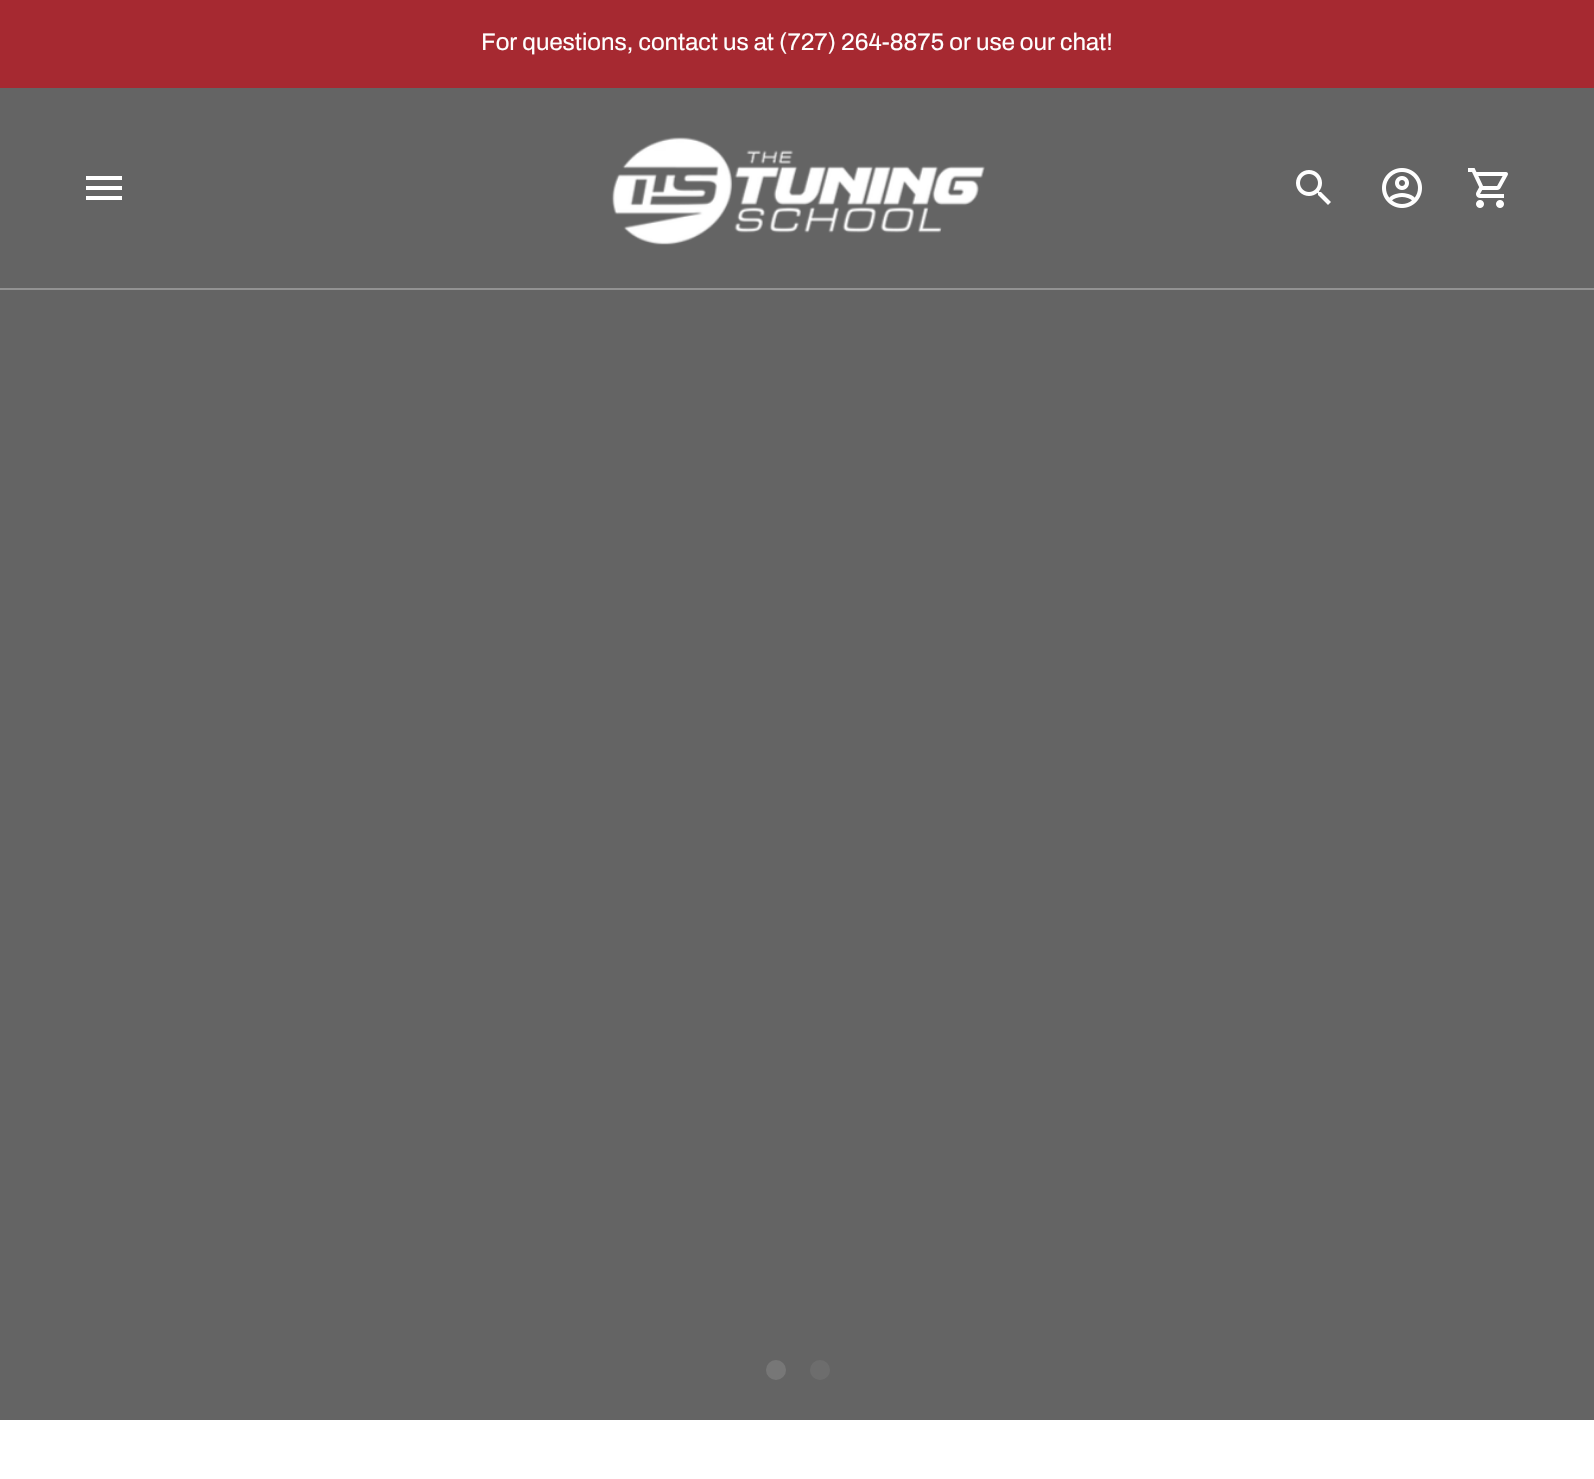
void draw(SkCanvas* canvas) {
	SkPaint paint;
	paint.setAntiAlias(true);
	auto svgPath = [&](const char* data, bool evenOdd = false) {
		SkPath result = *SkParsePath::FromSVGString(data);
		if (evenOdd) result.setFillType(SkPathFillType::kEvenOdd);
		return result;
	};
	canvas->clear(0xffffffff);
	paint.setColor(0xffa62931);
	canvas->drawRect(SkRect::MakeXYWH(0, 0, 1594, 88), paint);
	SkFont f1(fontMgr->matchFamilyStyle("Archivo", SkFontStyle::Normal()), 24);
	f1.setSubpixel(true);
	paint.setColor(0xffffffff);
	canvas->drawString("For questions, contact us at (727) 264-8875 or use our chat!", 481, 50, f1, paint);
	paint.setColor(0xff646464);
	canvas->drawRect(SkRect::MakeXYWH(0, 88, 1594, 1332), paint);
	paint.setColor(0xff777777);
	canvas->drawCircle(776, 1370, 10, paint);
	paint.setColor(0xff6d6d6d);
	canvas->drawCircle(820, 1370, 10, paint);
	paint.setColor(0xff929292);
	canvas->drawRect(SkRect::MakeXYWH(0, 288, 1594, 2), paint);
	paint.setColor(0xffffffff);
	canvas->drawPath(svgPath("M86 200H122V196H86ZM86 190H122V186H86ZM86 176V180H122V176Z"), paint);
	canvas->drawImageRect(SkImages::DeferredFromEncodedData(SkData::MakeFromFileName("img1.png")), SkRect::MakeXYWH(611, 137, 374, 108), SkSamplingOptions());
	canvas->drawImageRect(SkImages::DeferredFromEncodedData(SkData::MakeFromFileName("img2.png")), SkRect::MakeXYWH(1296, 170, 35, 35), SkSamplingOptions());
	canvas->drawImageRect(SkImages::DeferredFromEncodedData(SkData::MakeFromFileName("img3.png")), SkRect::MakeXYWH(1382, 168, 40, 40), SkSamplingOptions());
	canvas->drawImageRect(SkImages::DeferredFromEncodedData(SkData::MakeFromFileName("img4.png")), SkRect::MakeXYWH(1468, 168, 40, 40), SkSamplingOptions());
}
